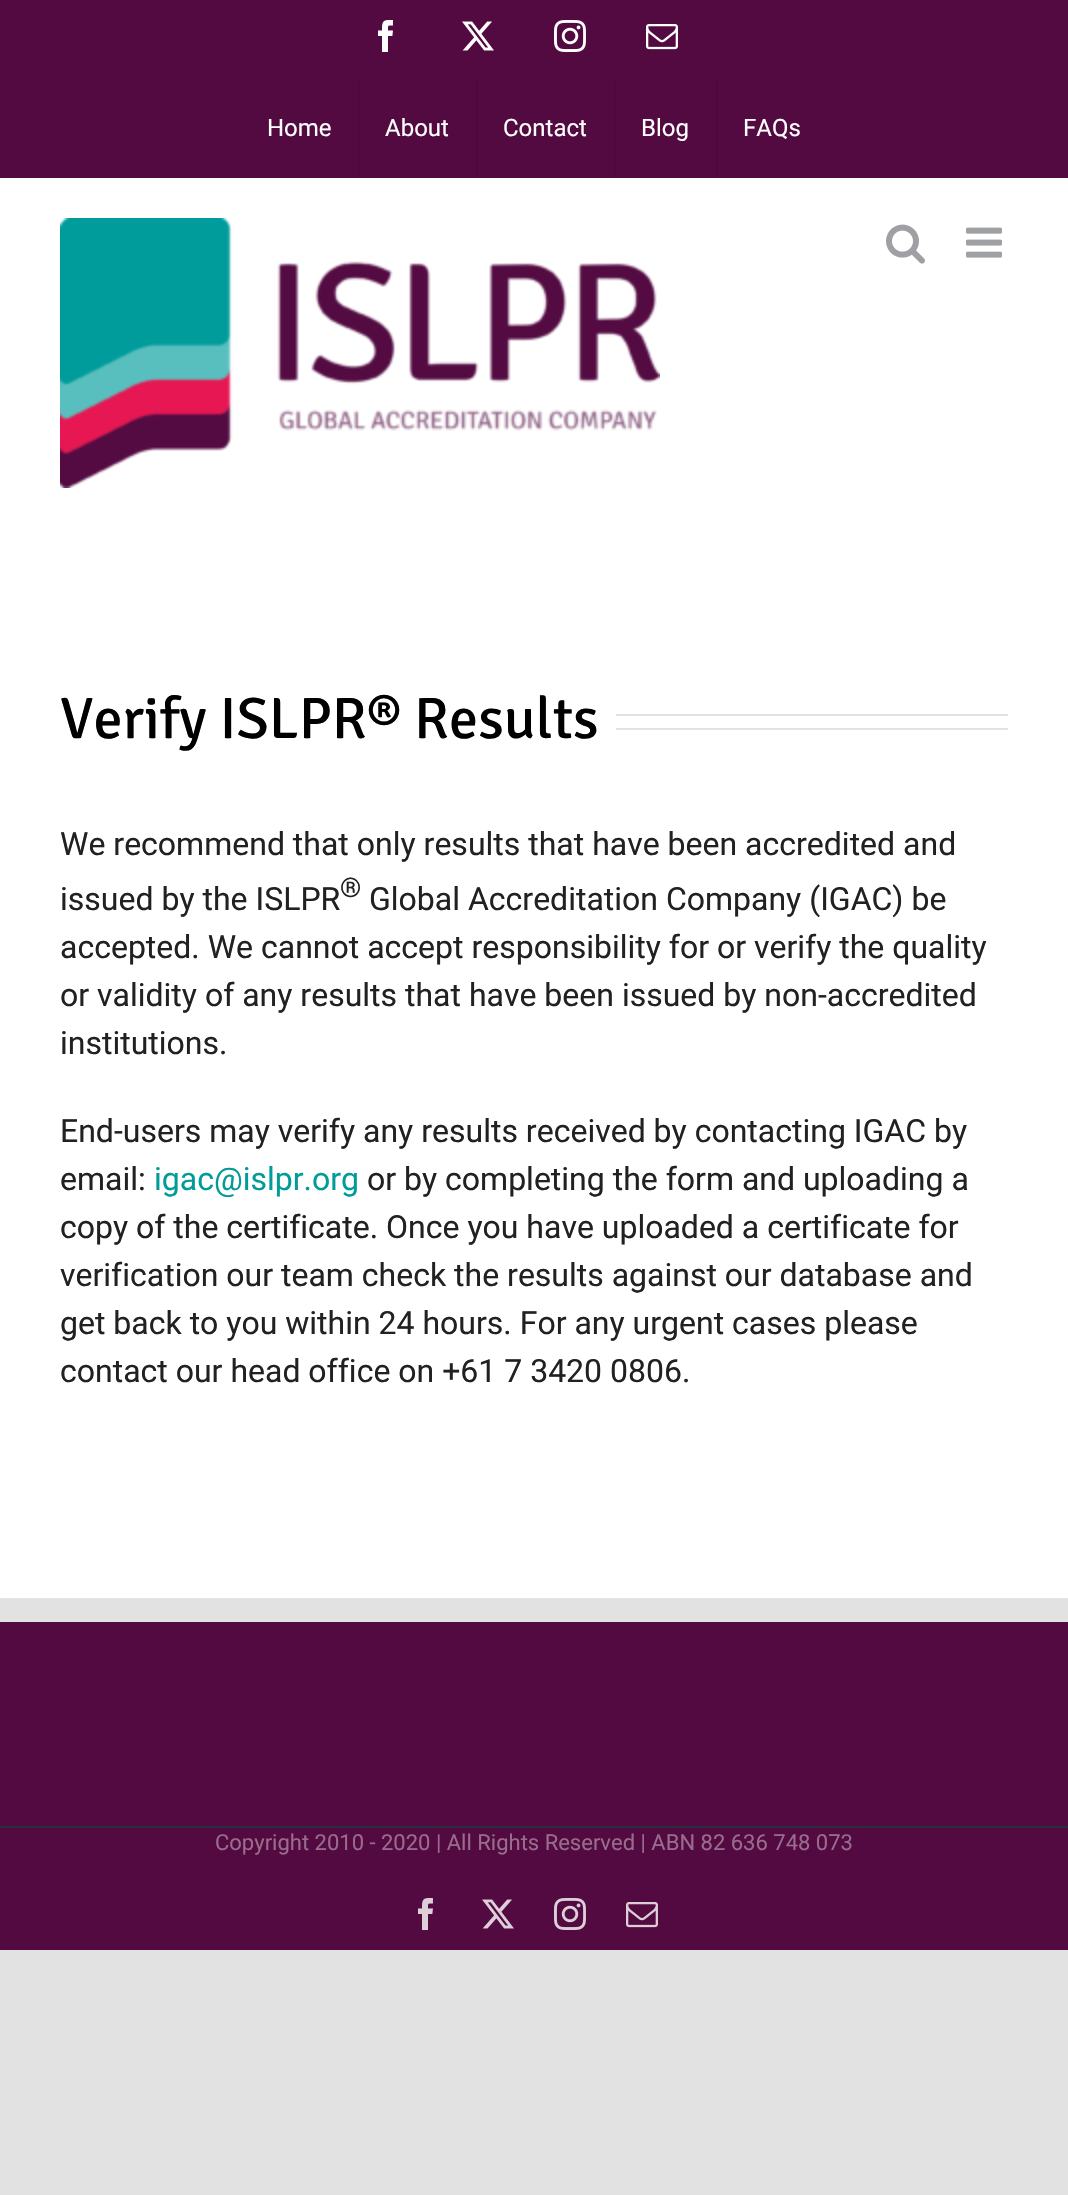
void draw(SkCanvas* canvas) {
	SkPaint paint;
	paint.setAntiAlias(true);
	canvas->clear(0xffe2e2e2);
	paint.setColor(0xff530a41);
	canvas->drawRect(SkRect::MakeXYWH(0, 0, 1068, 178), paint);
	canvas->drawImageRect(SkImages::DeferredFromEncodedData(SkData::MakeFromFileName("img1.png")), SkRect::MakeXYWH(378, 20, 15, 32), SkSamplingOptions());
	canvas->drawImageRect(SkImages::DeferredFromEncodedData(SkData::MakeFromFileName("img2.png")), SkRect::MakeXYWH(462, 21, 32, 30), SkSamplingOptions());
	canvas->drawImageRect(SkImages::DeferredFromEncodedData(SkData::MakeFromFileName("img3.png")), SkRect::MakeXYWH(554, 20, 32, 32), SkSamplingOptions());
	canvas->drawImageRect(SkImages::DeferredFromEncodedData(SkData::MakeFromFileName("img4.png")), SkRect::MakeXYWH(646, 24, 32, 26), SkSamplingOptions());
	SkFont f1(fontMgr->matchFamilyStyle("Roboto", SkFontStyle::Normal()), 24);
	f1.setSubpixel(true);
	paint.setColor(0xffffffff);
	canvas->drawString("Home", 267, 136, f1, paint);
	paint.setColor(0xff4e093d);
	canvas->drawRect(SkRect::MakeXYWH(358, 80, 2, 96), paint);
	paint.setColor(0xffffffff);
	canvas->drawString("About", 385, 136, f1, paint);
	paint.setColor(0xff4e093d);
	canvas->drawRect(SkRect::MakeXYWH(476, 80, 2, 96), paint);
	paint.setColor(0xffffffff);
	canvas->drawString("Contact", 503, 136, f1, paint);
	paint.setColor(0xff4e093d);
	canvas->drawRect(SkRect::MakeXYWH(614, 80, 2, 96), paint);
	paint.setColor(0xffffffff);
	canvas->drawString("Blog", 641, 136, f1, paint);
	paint.setColor(0xff4e093d);
	canvas->drawRect(SkRect::MakeXYWH(716, 80, 2, 96), paint);
	paint.setColor(0xffffffff);
	canvas->drawString("FAQs", 743, 136, f1, paint);
	canvas->drawRect(SkRect::MakeXYWH(0, 178, 1068, 1420), paint);
	canvas->drawImageRect(SkImages::DeferredFromEncodedData(SkData::MakeFromFileName("img5.png")), SkRect::MakeXYWH(60, 218, 600, 270), SkSamplingOptions());
	canvas->drawImageRect(SkImages::DeferredFromEncodedData(SkData::MakeFromFileName("img6.png")), SkRect::MakeXYWH(886, 224, 39, 40), SkSamplingOptions());
	canvas->drawImageRect(SkImages::DeferredFromEncodedData(SkData::MakeFromFileName("img7.png")), SkRect::MakeXYWH(966, 227, 36, 31), SkSamplingOptions());
	SkFont f2(fontMgr->matchFamilyStyle("Signika", SkFontStyle(300, SkFontStyle::kNormal_Width, SkFontStyle::kUpright_Slant)), 58.25);
	f2.setSubpixel(true);
	paint.setColor(0xff000000);
	canvas->drawString("Verify ISLPR® Results", 60, 738, f2, paint);
	paint.setColor(0xffe2e2e2);
	canvas->drawRect(SkRect::MakeXYWH(616, 714, 392, 2), paint);
	canvas->drawRect(SkRect::MakeXYWH(616, 728, 392, 2), paint);
	SkFont f3(fontMgr->matchFamilyStyle("Roboto", SkFontStyle::Normal()), 32);
	f3.setSubpixel(true);
	paint.setColor(0xff212121);
	canvas->drawString("We recommend that only results that have been accredited and", 60, 855, f3, paint);
	canvas->drawString("issued by the ISLPR", 60, 910, f3, paint);
	SkFont f4(fontMgr->matchFamilyStyle("Roboto", SkFontStyle::Normal()), 27);
	f4.setSubpixel(true);
	canvas->drawString("®", 340, 897, f4, paint);
	canvas->drawString("Global Accreditation Company (IGAC) be", 369, 910, f3, paint);
	canvas->drawString("accepted. We cannot accept responsibility for or verify the quality", 60, 958, f3, paint);
	canvas->drawString("or validity of any results that have been issued by non-accredited", 60, 1006, f3, paint);
	canvas->drawString("institutions.", 60, 1054, f3, paint);
	canvas->drawString("End-users may verify any results received by contacting IGAC by", 60, 1142, f3, paint);
	canvas->drawString("email:", 60, 1190, f3, paint);
	paint.setColor(0xff009c9a);
	canvas->drawString("igac@islpr.org", 154, 1190, f3, paint);
	paint.setColor(0xff212121);
	canvas->drawString("or by completing the form and uploading a", 367, 1190, f3, paint);
	canvas->drawString("copy of the certificate. Once you have uploaded a certificate for", 60, 1238, f3, paint);
	canvas->drawString("verification our team check the results against our database and", 60, 1286, f3, paint);
	canvas->drawString("get back to you within 24 hours. For any urgent cases please", 60, 1334, f3, paint);
	canvas->drawString("contact our head office on +61 7 3420 0806.", 60, 1382, f3, paint);
	paint.setColor(0xff530a41);
	canvas->drawRect(SkRect::MakeXYWH(0, 1622, 1068, 204), paint);
	canvas->drawRect(SkRect::MakeXYWH(0, 1828, 1068, 122), paint);
	paint.setColor(0xff26303e);
	canvas->drawRect(SkRect::MakeXYWH(0, 1826, 1068, 2), paint);
	SkFont f5(fontMgr->matchFamilyStyle("Roboto", SkFontStyle::Normal()), 22);
	f5.setSubpixel(true);
	paint.setColor(0xff986c8d);
	canvas->drawString("Copyright 2010 - 2020 | All Rights Reserved | ABN 82 636 748 073", 215, 1850, f5, paint);
	canvas->drawImageRect(SkImages::DeferredFromEncodedData(SkData::MakeFromFileName("img8.png")), SkRect::MakeXYWH(418, 1898, 15, 32), SkSamplingOptions());
	canvas->drawImageRect(SkImages::DeferredFromEncodedData(SkData::MakeFromFileName("img9.png")), SkRect::MakeXYWH(482, 1899, 32, 30), SkSamplingOptions());
	canvas->drawImageRect(SkImages::DeferredFromEncodedData(SkData::MakeFromFileName("img10.png")), SkRect::MakeXYWH(554, 1898, 32, 32), SkSamplingOptions());
	canvas->drawImageRect(SkImages::DeferredFromEncodedData(SkData::MakeFromFileName("img11.png")), SkRect::MakeXYWH(626, 1902, 32, 26), SkSamplingOptions());
}
